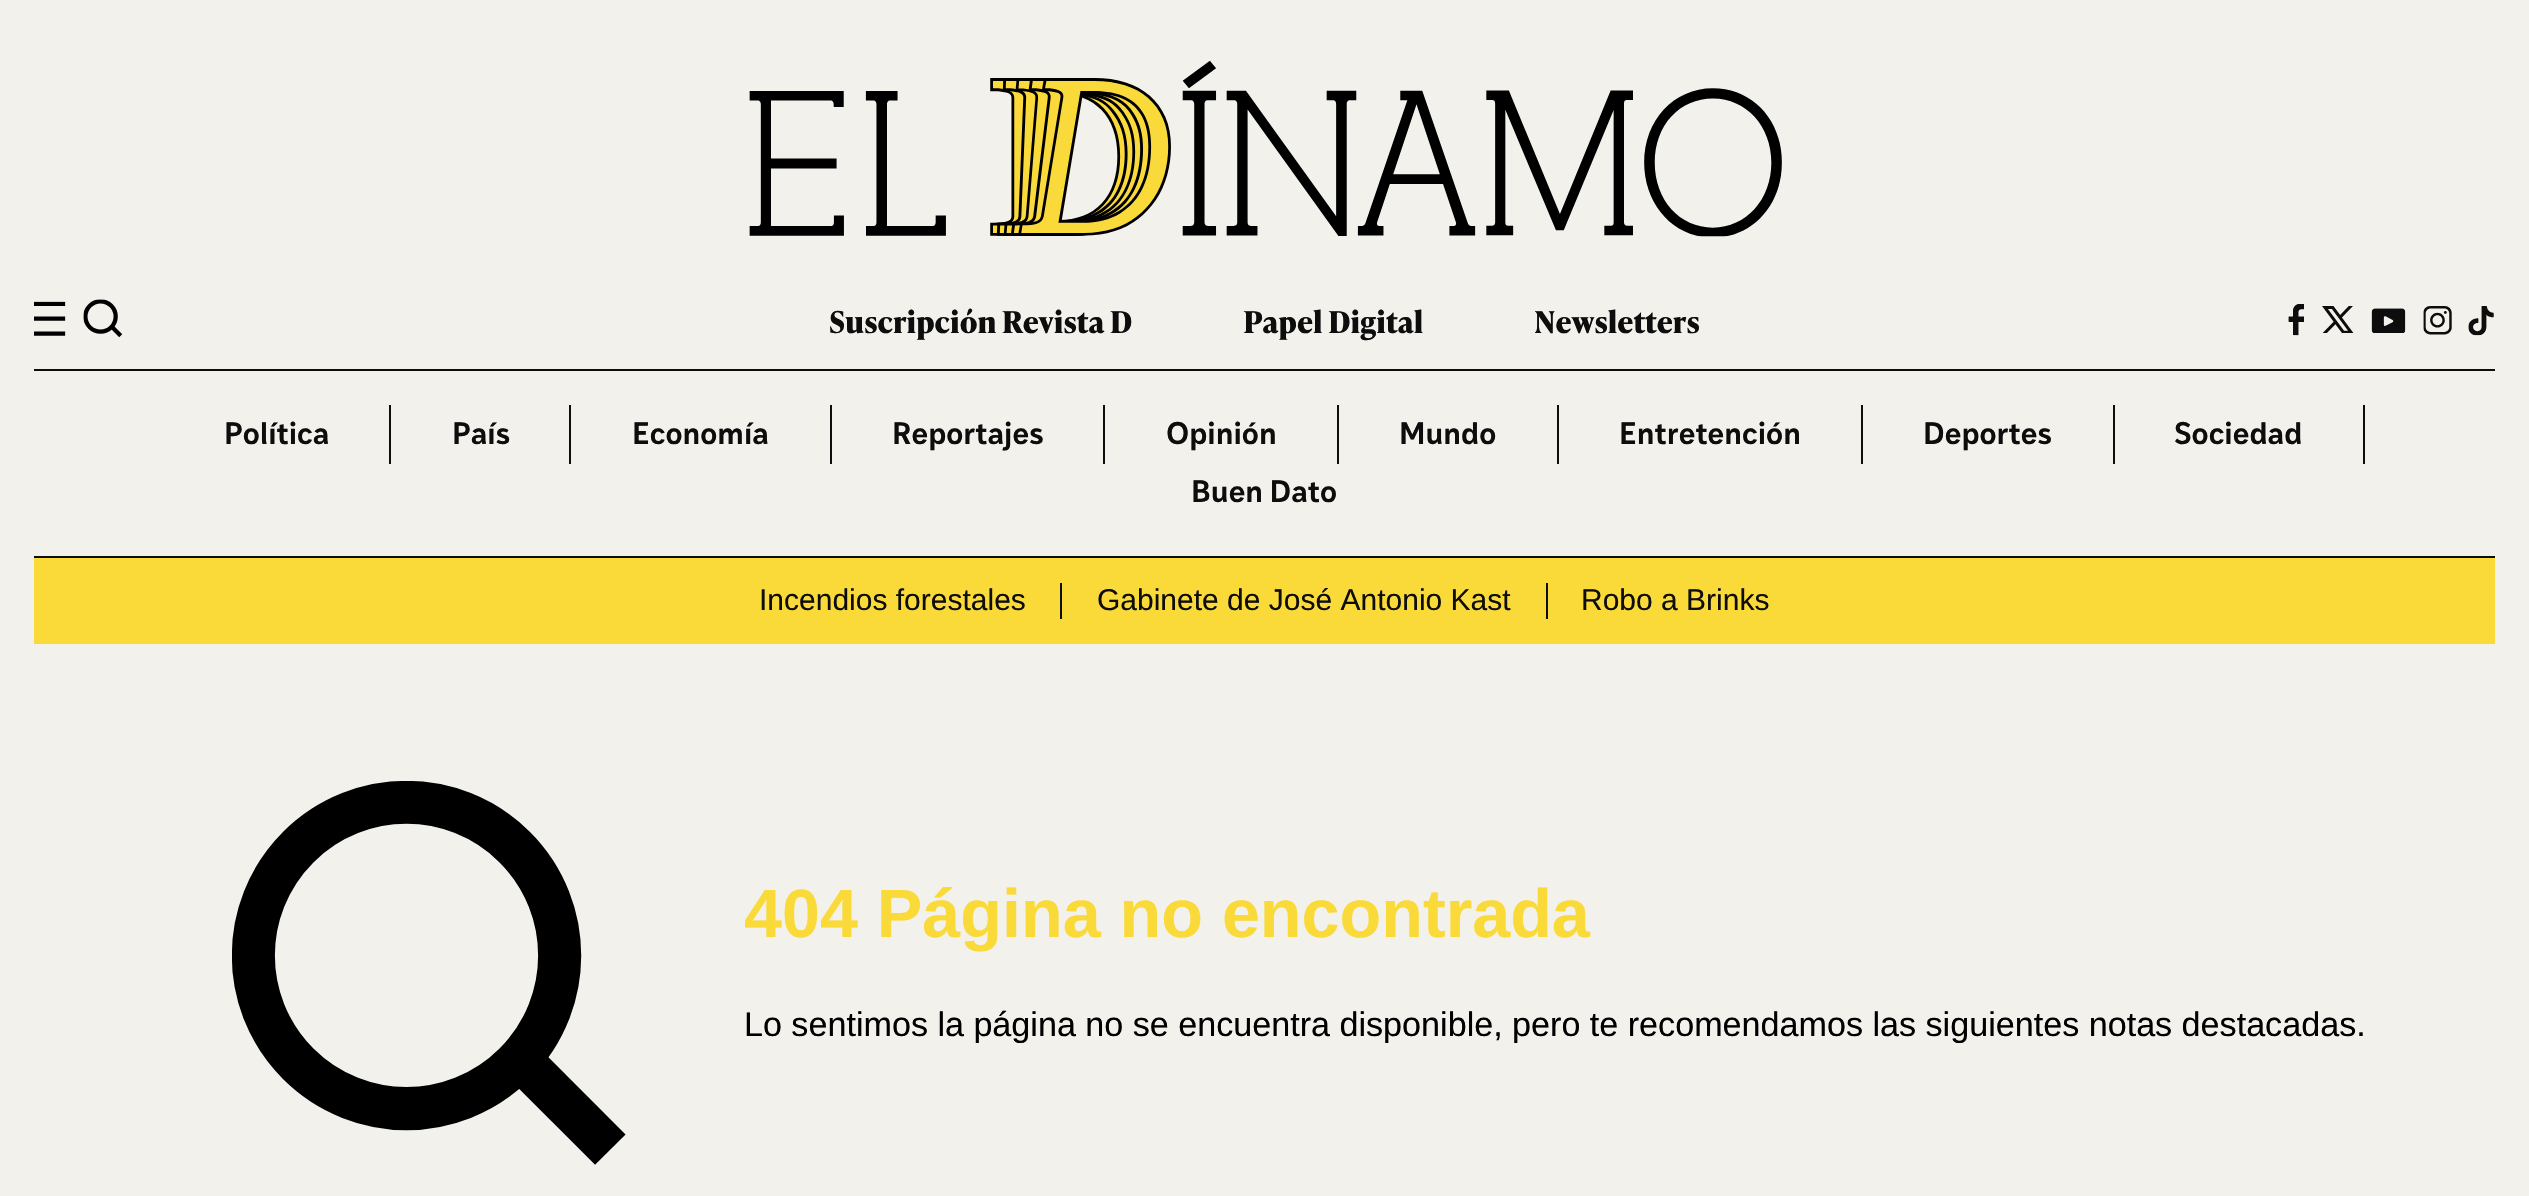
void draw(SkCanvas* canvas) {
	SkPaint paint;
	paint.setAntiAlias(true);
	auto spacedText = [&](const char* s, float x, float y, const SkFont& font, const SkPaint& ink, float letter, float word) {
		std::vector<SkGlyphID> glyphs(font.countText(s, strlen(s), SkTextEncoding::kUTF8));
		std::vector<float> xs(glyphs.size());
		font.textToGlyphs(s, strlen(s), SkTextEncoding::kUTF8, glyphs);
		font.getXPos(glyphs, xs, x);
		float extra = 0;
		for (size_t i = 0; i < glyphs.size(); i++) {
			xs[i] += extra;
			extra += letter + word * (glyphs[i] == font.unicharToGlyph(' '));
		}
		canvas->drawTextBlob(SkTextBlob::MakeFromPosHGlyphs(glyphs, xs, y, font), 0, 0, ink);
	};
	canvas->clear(0xfff3f1ec);
	canvas->drawImageRect(SkImages::DeferredFromEncodedData(SkData::MakeFromFileName("img1.png")), SkRect::MakeXYWH(749, 61, 1033, 176), SkSamplingOptions());
	canvas->drawImageRect(SkImages::DeferredFromEncodedData(SkData::MakeFromFileName("img2.png")), SkRect::MakeXYWH(34, 301, 32, 35), SkSamplingOptions());
	canvas->drawImageRect(SkImages::DeferredFromEncodedData(SkData::MakeFromFileName("img3.png")), SkRect::MakeXYWH(83, 299, 40, 39), SkSamplingOptions());
	SkFont f1(fontMgr->matchFamilyStyle("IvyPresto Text", SkFontStyle::Bold()), 30);
	f1.setSubpixel(true);
	paint.setColor(0xff0d0d0d);
	canvas->drawString("Suscripción Revista D", 829, 333, f1, paint);
	canvas->drawString("Papel Digital", 1243, 333, f1, paint);
	canvas->drawString("Newsletters", 1534, 333, f1, paint);
	canvas->drawImageRect(SkImages::DeferredFromEncodedData(SkData::MakeFromFileName("img4.png")), SkRect::MakeXYWH(2288, 304, 16, 32), SkSamplingOptions());
	canvas->drawImageRect(SkImages::DeferredFromEncodedData(SkData::MakeFromFileName("img5.png")), SkRect::MakeXYWH(2322, 306, 32, 27), SkSamplingOptions());
	canvas->drawImageRect(SkImages::DeferredFromEncodedData(SkData::MakeFromFileName("img6.png")), SkRect::MakeXYWH(2371, 308, 35, 25), SkSamplingOptions());
	canvas->drawImageRect(SkImages::DeferredFromEncodedData(SkData::MakeFromFileName("img7.png")), SkRect::MakeXYWH(2423, 306, 29, 29), SkSamplingOptions());
	canvas->drawImageRect(SkImages::DeferredFromEncodedData(SkData::MakeFromFileName("img8.png")), SkRect::MakeXYWH(2468, 306, 26, 30), SkSamplingOptions());
	canvas->drawRect(SkRect::MakeXYWH(34, 369, 2461, 2), paint);
	canvas->drawRect(SkRect::MakeXYWH(34, 556, 2461, 2), paint);
	canvas->drawRect(SkRect::MakeXYWH(389, 405, 2, 59), paint);
	SkFont f2(fontMgr->matchFamilyStyle("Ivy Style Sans", SkFontStyle(600, SkFontStyle::kNormal_Width, SkFontStyle::kUpright_Slant)), 30);
	f2.setSubpixel(true);
	canvas->drawString("Política", 224, 444, f2, paint);
	canvas->drawRect(SkRect::MakeXYWH(569, 405, 2, 59), paint);
	canvas->drawString("País", 452, 444, f2, paint);
	canvas->drawRect(SkRect::MakeXYWH(830, 405, 2, 59), paint);
	canvas->drawString("Economía", 632, 444, f2, paint);
	canvas->drawRect(SkRect::MakeXYWH(1103, 405, 2, 59), paint);
	canvas->drawString("Reportajes", 892, 444, f2, paint);
	canvas->drawRect(SkRect::MakeXYWH(1337, 405, 2, 59), paint);
	canvas->drawString("Opinión", 1166, 444, f2, paint);
	canvas->drawRect(SkRect::MakeXYWH(1557, 405, 2, 59), paint);
	canvas->drawString("Mundo", 1399, 444, f2, paint);
	canvas->drawRect(SkRect::MakeXYWH(1861, 405, 2, 59), paint);
	canvas->drawString("Entretención", 1619, 444, f2, paint);
	canvas->drawRect(SkRect::MakeXYWH(2113, 405, 2, 59), paint);
	canvas->drawString("Deportes", 1923, 444, f2, paint);
	canvas->drawRect(SkRect::MakeXYWH(2363, 405, 2, 59), paint);
	canvas->drawString("Sociedad", 2174, 444, f2, paint);
	canvas->drawString("Buen Dato", 1191, 502, f2, paint);
	paint.setColor(0xfffada38);
	canvas->drawRect(SkRect::MakeXYWH(34, 558, 2461, 86), paint);
	paint.setColor(0xff0d0d0d);
	canvas->drawRect(SkRect::MakeXYWH(1060, 583, 2, 36), paint);
	SkFont f3(fontMgr->matchFamilyStyle("Liberation Sans", SkFontStyle::Normal()), 30);
	f3.setSubpixel(true);
	canvas->drawString("Incendios forestales", 759, 610, f3, paint);
	canvas->drawRect(SkRect::MakeXYWH(1546, 583, 2, 36), paint);
	canvas->drawString("Gabinete de José Antonio Kast", 1097, 610, f3, paint);
	canvas->drawString("Robo a Brinks", 1581, 610, f3, paint);
	canvas->drawImageRect(SkImages::DeferredFromEncodedData(SkData::MakeFromFileName("img9.png")), SkRect::MakeXYWH(232, 781, 394, 384), SkSamplingOptions());
	SkFont f4(fontMgr->matchFamilyStyle("Liberation Sans", SkFontStyle::Bold()), 68.25);
	f4.setSubpixel(true);
	paint.setColor(0xfffada38);
	canvas->drawString("404 Página no encontrada", 744, 937, f4, paint);
	SkFont f5(fontMgr->matchFamilyStyle("Liberation Sans", SkFontStyle::Normal()), 34.15);
	f5.setSubpixel(true);
	paint.setColor(0xff000000);
	spacedText("Lo sentimos la página no se encuentra disponible, pero te recomendamos las siguientes notas destacadas.", 744, 1036, f5, paint, 0, -0.1);
}
